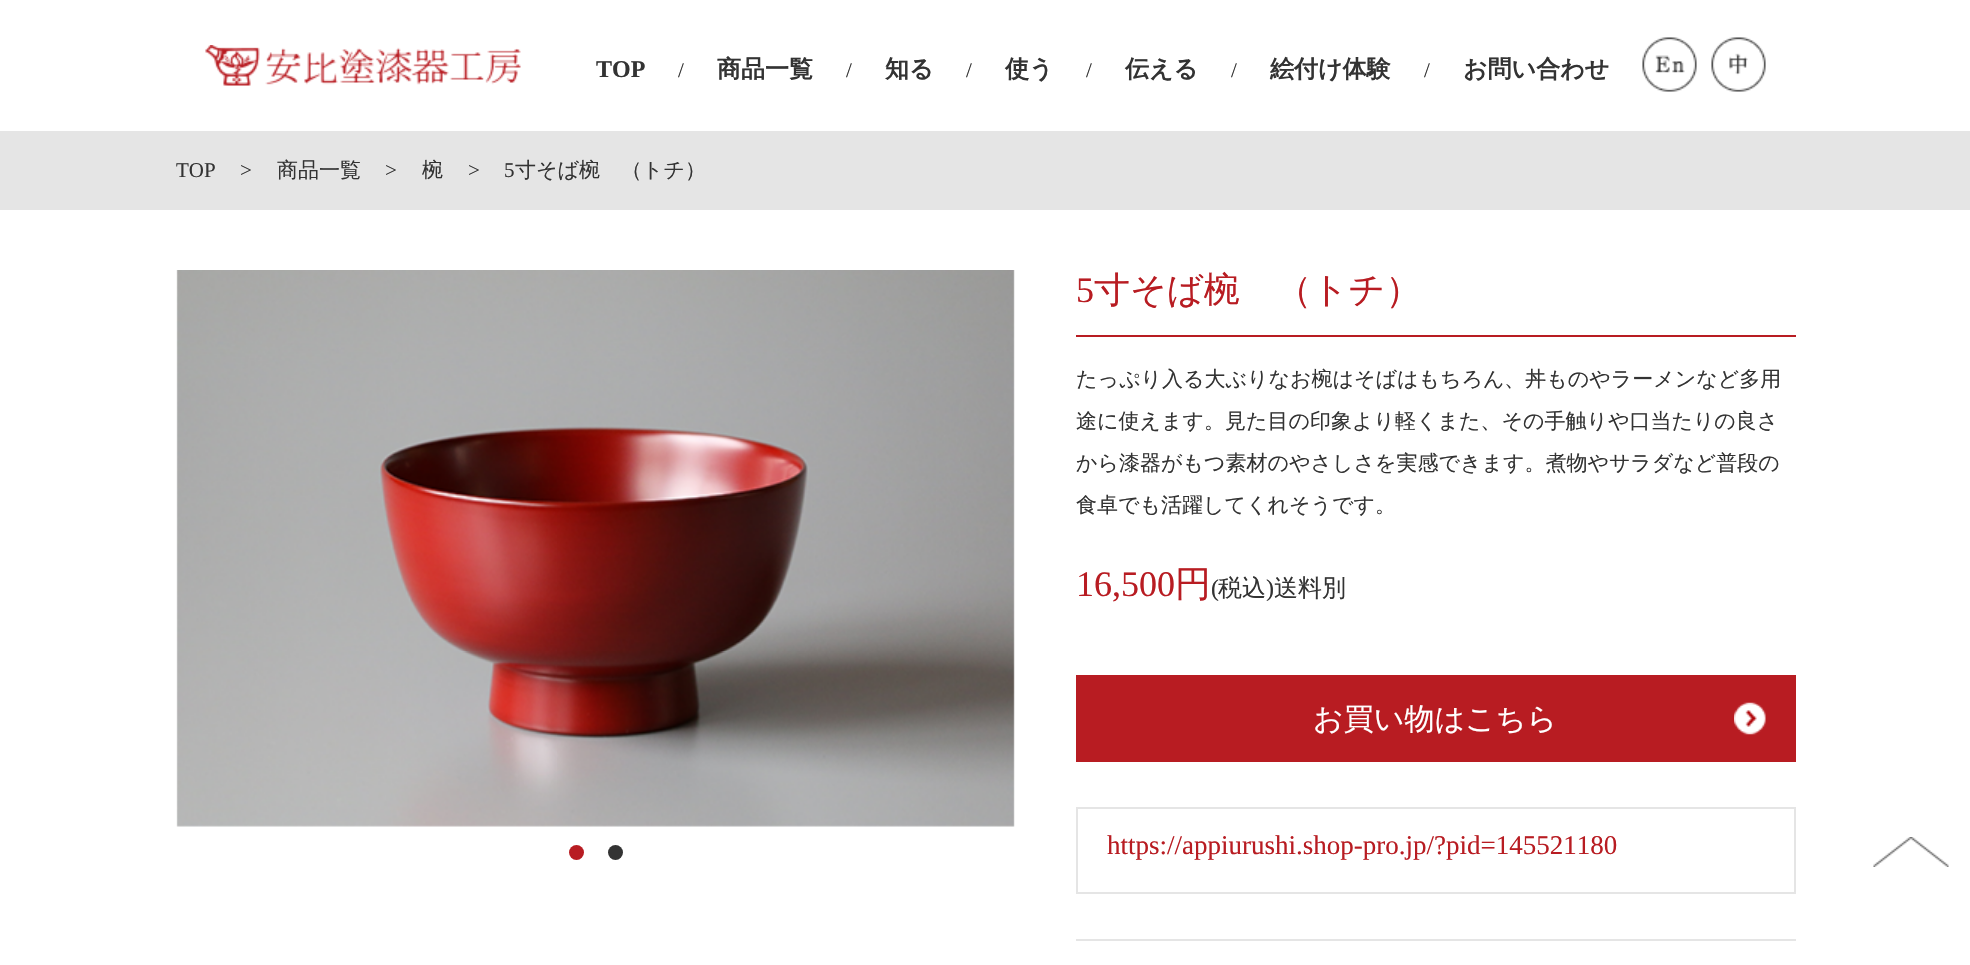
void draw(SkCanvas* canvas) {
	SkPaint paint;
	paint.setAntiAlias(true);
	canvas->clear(0xffffffff);
	canvas->drawImageRect(SkImages::DeferredFromEncodedData(SkData::MakeFromFileName("img1.png")), SkRect::MakeXYWH(205, 45, 316, 41), SkSamplingOptions());
	SkFont f1(fontMgr->matchFamilyStyle("Liberation Serif", SkFontStyle::Bold()), 24);
	f1.setSubpixel(true);
	paint.setColor(0xff333333);
	canvas->drawString("TOP", 596, 77, f1, paint);
	SkFont f2(fontMgr->matchFamilyStyle("Liberation Serif", SkFontStyle::Normal()), 21);
	f2.setSubpixel(true);
	canvas->drawString("/", 678, 77, f2, paint);
	SkFont f3(fontMgr->matchFamilyStyle("WenQuanYi Zen Hei", SkFontStyle::Bold()), 24);
	f3.setSubpixel(true);
	canvas->drawString("商品一覧", 717, 77, f3, paint);
	canvas->drawString("/", 846, 77, f2, paint);
	canvas->drawString("知る", 885, 77, f3, paint);
	canvas->drawString("/", 966, 77, f2, paint);
	canvas->drawString("使う", 1005, 77, f3, paint);
	canvas->drawString("/", 1086, 77, f2, paint);
	canvas->drawString("伝える", 1125, 77, f3, paint);
	canvas->drawString("/", 1231, 77, f2, paint);
	canvas->drawString("絵付け体験", 1270, 77, f3, paint);
	canvas->drawString("/", 1424, 77, f2, paint);
	canvas->drawString("お問い合わせ", 1463, 77, f3, paint);
	canvas->drawImageRect(SkImages::DeferredFromEncodedData(SkData::MakeFromFileName("img2.png")), SkRect::MakeXYWH(1642, 37, 55, 55), SkSamplingOptions());
	canvas->drawImageRect(SkImages::DeferredFromEncodedData(SkData::MakeFromFileName("img3.png")), SkRect::MakeXYWH(1711, 37, 55, 55), SkSamplingOptions());
	paint.setColor(0xffe5e5e5);
	canvas->drawRect(SkRect::MakeXYWH(0, 131, 1970, 79), paint);
	paint.setColor(0xff333333);
	canvas->drawString("TOP", 176, 177, f2, paint);
	canvas->drawString(">", 240, 177, f2, paint);
	SkFont f4(fontMgr->matchFamilyStyle("WenQuanYi Zen Hei", SkFontStyle(500, SkFontStyle::kNormal_Width, SkFontStyle::kUpright_Slant)), 21);
	f4.setSubpixel(true);
	canvas->drawString("商品一覧", 277, 177, f4, paint);
	canvas->drawString(">", 385, 177, f2, paint);
	canvas->drawString("椀", 422, 177, f4, paint);
	canvas->drawString(">", 468, 177, f2, paint);
	canvas->drawString("5", 504, 177, f2, paint);
	canvas->drawString("寸そば椀　（トチ）", 515, 177, f4, paint);
	canvas->drawImageRect(SkImages::DeferredFromEncodedData(SkData::MakeFromFileName("img4.png")), SkRect::MakeXYWH(176, 270, 839, 557), SkSamplingOptions());
	paint.setColor(0xffb81c22);
	canvas->drawCircle(576.5, 852.5, 7.5, paint);
	paint.setColor(0xff333333);
	canvas->drawCircle(615.5, 852.5, 7.5, paint);
	paint.setColor(0xffb81c22);
	canvas->drawRect(SkRect::MakeXYWH(1076, 335, 720, 2), paint);
	SkFont f5(fontMgr->matchFamilyStyle("Liberation Serif", SkFontStyle::Normal()), 36);
	f5.setSubpixel(true);
	canvas->drawString("5", 1076, 302, f5, paint);
	SkFont f6(fontMgr->matchFamilyStyle("WenQuanYi Zen Hei", SkFontStyle(500, SkFontStyle::kNormal_Width, SkFontStyle::kUpright_Slant)), 36);
	f6.setSubpixel(true);
	canvas->drawString("寸そば椀　（トチ）", 1094, 302, f6, paint);
	paint.setColor(0xff333333);
	canvas->drawString("たっぷり入る大ぶりなお椀はそばはもちろん、丼ものやラーメンなど多用", 1076, 386, f4, paint);
	canvas->drawString("途に使えます。見た目の印象より軽くまた、その手触りや口当たりの良さ", 1076, 428, f4, paint);
	canvas->drawString("から漆器がもつ素材のやさしさを実感できます。煮物やサラダなど普段の", 1076, 470, f4, paint);
	canvas->drawString("食卓でも活躍してくれそうです。", 1076, 512, f4, paint);
	paint.setColor(0xffb81c22);
	canvas->drawString("16,500", 1076, 596, f5, paint);
	canvas->drawString("円", 1175, 596, f6, paint);
	SkFont f7(fontMgr->matchFamilyStyle("Liberation Serif", SkFontStyle::Normal()), 24);
	f7.setSubpixel(true);
	paint.setColor(0xff333333);
	canvas->drawString("(", 1211, 596, f7, paint);
	SkFont f8(fontMgr->matchFamilyStyle("WenQuanYi Zen Hei", SkFontStyle(500, SkFontStyle::kNormal_Width, SkFontStyle::kUpright_Slant)), 24);
	f8.setSubpixel(true);
	canvas->drawString("税込", 1218, 596, f8, paint);
	canvas->drawString(")", 1266, 596, f7, paint);
	canvas->drawString("送料別", 1274, 596, f8, paint);
	paint.setColor(0xffb81c22);
	canvas->drawRect(SkRect::MakeXYWH(1076, 675, 720, 87), paint);
	SkFont f9(fontMgr->matchFamilyStyle("WenQuanYi Zen Hei", SkFontStyle(500, SkFontStyle::kNormal_Width, SkFontStyle::kUpright_Slant)), 30);
	f9.setSubpixel(true);
	paint.setColor(0xffffffff);
	canvas->drawString("お買い物はこちら", 1313, 729, f9, paint);
	canvas->drawImageRect(SkImages::DeferredFromEncodedData(SkData::MakeFromFileName("img5.png")), SkRect::MakeXYWH(1734, 702, 32, 33), SkSamplingOptions());
	paint.setStroke(true);
	paint.setStrokeWidth(2);
	paint.setColor(0xffe5e5e5);
	canvas->drawRect(SkRect::MakeXYWH(1077, 808, 718, 85), paint);
	SkFont f10(fontMgr->matchFamilyStyle("Liberation Serif", SkFontStyle::Normal()), 27);
	f10.setSubpixel(true);
	paint.setStroke(false);
	paint.setColor(0xffb81c22);
	canvas->drawString("https://appiurushi.shop-pro.jp/?pid=145521180", 1107, 854, f10, paint);
	paint.setColor(0xffe5e5e5);
	canvas->drawRect(SkRect::MakeXYWH(1076, 939, 720, 2), paint);
	canvas->drawImageRect(SkImages::DeferredFromEncodedData(SkData::MakeFromFileName("img6.png")), SkRect::MakeXYWH(1873, 837, 76, 30), SkSamplingOptions());
}
